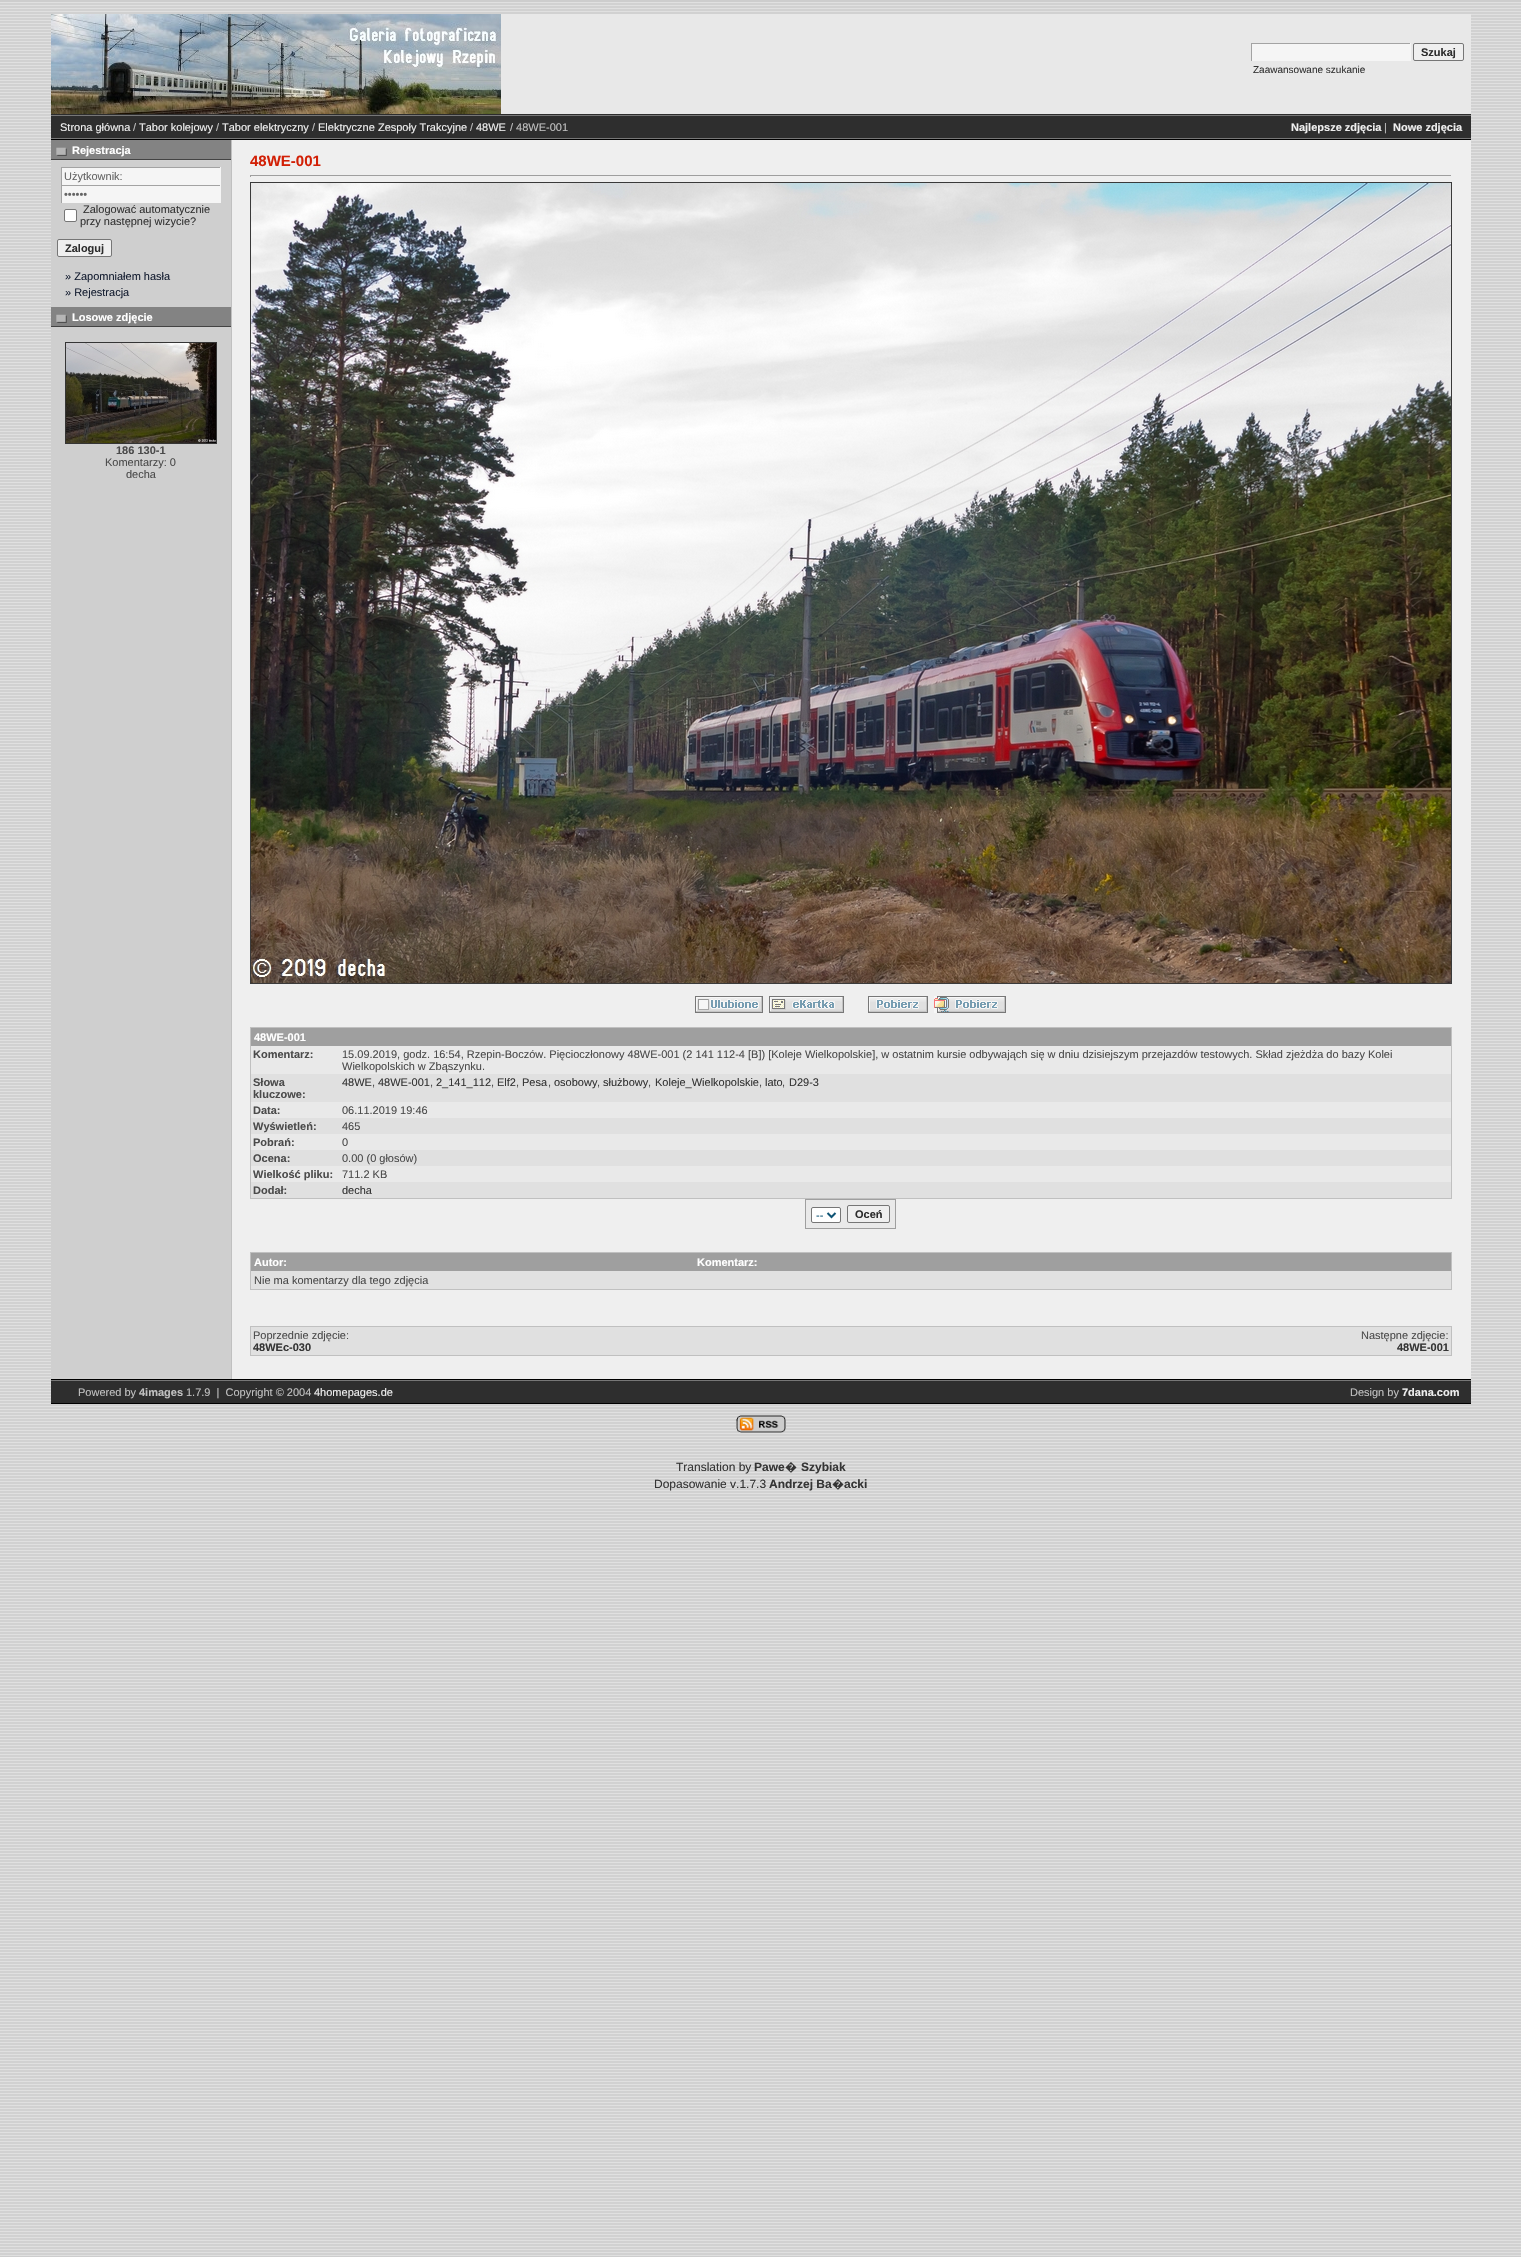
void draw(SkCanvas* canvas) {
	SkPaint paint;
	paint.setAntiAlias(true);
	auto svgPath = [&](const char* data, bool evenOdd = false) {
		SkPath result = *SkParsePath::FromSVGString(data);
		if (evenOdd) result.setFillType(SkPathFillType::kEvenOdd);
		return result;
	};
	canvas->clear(0xffcdcdcd);
	canvas->drawImageRect(SkImages::DeferredFromEncodedData(SkData::MakeFromFileName("img1.png")), SkRect::MakeXYWH(0, 2, 1521, 2254), SkSamplingOptions());
	paint.setColor(0xffe8e8e8);
	canvas->drawRect(SkRect::MakeXYWH(501, 14, 970, 100), paint);
	paint.setColor(0xff2d2d2d);
	canvas->drawRect(SkRect::MakeXYWH(51, 114, 1420, 1), paint);
	canvas->drawImageRect(SkImages::DeferredFromEncodedData(SkData::MakeFromFileName("img2.png")), SkRect::MakeXYWH(51, 14, 450, 100), SkSamplingOptions());
	paint.setColor(0xfff5f5f5);
	canvas->drawRect(SkRect::MakeXYWH(1252, 44, 158, 17), paint);
	paint.setColor(0xffa3a3a3);
	canvas->drawRect(SkRect::MakeXYWH(1251, 43, 160, 1), paint);
	paint.setColor(0xfff5f5f5);
	canvas->drawRect(SkRect::MakeXYWH(1410, 43, 1, 18), paint);
	paint.setColor(0xffa3a3a3);
	canvas->drawRect(SkRect::MakeXYWH(1251, 43, 1, 18), paint);
	paint.setColor(0xffefefef);
	canvas->drawRoundRect(SkRect::MakeXYWH(1413.5, 43.5, 50, 17), 1.5, 1.5, paint);
	paint.setStroke(true);
	paint.setStrokeWidth(1);
	paint.setColor(0xff767676);
	canvas->drawRoundRect(SkRect::MakeXYWH(1413.5, 43.5, 50, 17), 1.5, 1.5, paint);
	SkFont f1(fontMgr->matchFamilyStyle("Liberation Sans", SkFontStyle::Bold()), 11);
	f1.setSubpixel(true);
	paint.setStroke(false);
	paint.setColor(0xff2d2d2d);
	canvas->drawString("Szukaj", 1421, 56, f1, paint);
	SkFont f2(fontMgr->matchFamilyStyle("Liberation Sans", SkFontStyle::Normal()), 10);
	f2.setSubpixel(true);
	paint.setColor(0xff353535);
	canvas->drawString("Zaawansowane szukanie", 1253, 73, f2, paint);
	paint.setColor(0xffefefef);
	canvas->drawRect(SkRect::MakeXYWH(232, 140, 1239, 1239), paint);
	paint.setColor(0xff2e2e2e);
	canvas->drawRect(SkRect::MakeXYWH(51, 116, 1420, 22), paint);
	paint.setColor(0xff777777);
	canvas->drawRect(SkRect::MakeXYWH(51, 115, 1420, 1), paint);
	canvas->drawRect(SkRect::MakeXYWH(51, 138, 1420, 1), paint);
	SkFont f3(fontMgr->matchFamilyStyle("Liberation Sans", SkFontStyle::Normal()), 11);
	f3.setSubpixel(true);
	paint.setColor(0xffefefef);
	canvas->drawString("Strona główna", 60, 131, f3, paint);
	paint.setColor(0xffc0c0c0);
	canvas->drawString("/", 133, 131, f3, paint);
	paint.setColor(0xffefefef);
	canvas->drawString("Tabor kolejowy", 139, 131, f3, paint);
	paint.setColor(0xffc0c0c0);
	canvas->drawString("/", 216, 131, f3, paint);
	paint.setColor(0xffefefef);
	canvas->drawString("Tabor elektryczny", 222, 131, f3, paint);
	paint.setColor(0xffc0c0c0);
	canvas->drawString("/", 312, 131, f3, paint);
	paint.setColor(0xffefefef);
	canvas->drawString("Elektryczne Zespoły Trakcyjne", 318, 131, f3, paint);
	paint.setColor(0xffc0c0c0);
	canvas->drawString("/", 470, 131, f3, paint);
	paint.setColor(0xffefefef);
	canvas->drawString("48WE", 476, 131, f3, paint);
	paint.setColor(0xffc0c0c0);
	canvas->drawString("/ 48WE-001", 510, 131, f3, paint);
	paint.setColor(0xffefefef);
	canvas->drawString("Najlepsze zdjęcia", 1291, 131, f1, paint);
	paint.setColor(0xffc0c0c0);
	canvas->drawString("|", 1384, 131, f3, paint);
	paint.setColor(0xffefefef);
	canvas->drawString("Nowe zdjęcia", 1393, 131, f1, paint);
	paint.setColor(0xff000000);
	canvas->drawRect(SkRect::MakeXYWH(51, 139, 1420, 1), paint);
	canvas->drawRect(SkRect::MakeXYWH(51, 1379, 1420, 1), paint);
	paint.setColor(0xffcfcfcf);
	canvas->drawRect(SkRect::MakeXYWH(51, 161, 180, 1216), paint);
	paint.setColor(0xff838383);
	canvas->drawRect(SkRect::MakeXYWH(51, 140, 180, 19), paint);
	canvas->drawImageRect(SkImages::DeferredFromEncodedData(SkData::MakeFromFileName("img3.png")), SkRect::MakeXYWH(56, 147, 11, 9), SkSamplingOptions());
	paint.setColor(0xff434343);
	canvas->drawRect(SkRect::MakeXYWH(51, 159, 180, 1), paint);
	paint.setColor(0xffffffff);
	canvas->drawString("Rejestracja", 72, 154, f1, paint);
	paint.setColor(0xfff5f5f5);
	canvas->drawRect(SkRect::MakeXYWH(62, 168, 158, 17), paint);
	paint.setColor(0xffa3a3a3);
	canvas->drawRect(SkRect::MakeXYWH(61, 167, 160, 1), paint);
	paint.setColor(0xfff5f5f5);
	canvas->drawRect(SkRect::MakeXYWH(220, 167, 1, 18), paint);
	paint.setColor(0xffa3a3a3);
	canvas->drawRect(SkRect::MakeXYWH(61, 167, 1, 18), paint);
	paint.setColor(0xff646464);
	canvas->drawString("Użytkownik:", 64, 180, f3, paint);
	paint.setColor(0xfff5f5f5);
	canvas->drawRect(SkRect::MakeXYWH(62, 186, 158, 17), paint);
	paint.setColor(0xffa3a3a3);
	canvas->drawRect(SkRect::MakeXYWH(61, 185, 160, 1), paint);
	paint.setColor(0xfff5f5f5);
	canvas->drawRect(SkRect::MakeXYWH(220, 185, 1, 18), paint);
	paint.setColor(0xffa3a3a3);
	canvas->drawRect(SkRect::MakeXYWH(61, 185, 1, 18), paint);
	paint.setColor(0xff646464);
	canvas->drawString("••••••", 64, 198, f3, paint);
	paint.setColor(0xffffffff);
	canvas->drawRoundRect(SkRect::MakeXYWH(64.5, 209.5, 12, 12), 1.5, 1.5, paint);
	paint.setStroke(true);
	paint.setColor(0xff767676);
	canvas->drawRoundRect(SkRect::MakeXYWH(64.5, 209.5, 12, 12), 1.5, 1.5, paint);
	paint.setStroke(false);
	paint.setColor(0xff353535);
	canvas->drawString("Zalogować automatycznie", 83, 213, f3, paint);
	canvas->drawString("przy następnej wizycie?", 80, 225, f3, paint);
	paint.setColor(0xffefefef);
	canvas->drawRoundRect(SkRect::MakeXYWH(57.5, 239.5, 54, 17), 1.5, 1.5, paint);
	paint.setStroke(true);
	paint.setColor(0xff767676);
	canvas->drawRoundRect(SkRect::MakeXYWH(57.5, 239.5, 54, 17), 1.5, 1.5, paint);
	paint.setStroke(false);
	paint.setColor(0xff2d2d2d);
	canvas->drawString("Zaloguj", 65, 252, f1, paint);
	paint.setColor(0xff172033);
	canvas->drawString("» Zapomniałem hasła", 65, 280, f3, paint);
	canvas->drawString("» Rejestracja", 65, 296, f3, paint);
	paint.setColor(0xff838383);
	canvas->drawRect(SkRect::MakeXYWH(51, 307, 180, 19), paint);
	canvas->drawImageRect(SkImages::DeferredFromEncodedData(SkData::MakeFromFileName("img4.png")), SkRect::MakeXYWH(56, 314, 11, 9), SkSamplingOptions());
	paint.setColor(0xff434343);
	canvas->drawRect(SkRect::MakeXYWH(51, 326, 180, 1), paint);
	paint.setColor(0xffffffff);
	canvas->drawString("Losowe zdjęcie", 72, 321, f1, paint);
	paint.setStroke(true);
	paint.setColor(0xff353535);
	canvas->drawRect(SkRect::MakeXYWH(65.5, 342.5, 151, 101), paint);
	canvas->drawImageRect(SkImages::DeferredFromEncodedData(SkData::MakeFromFileName("img5.png")), SkRect::MakeXYWH(66, 343, 150, 100), SkSamplingOptions());
	paint.setStroke(false);
	paint.setColor(0xff4b4b4b);
	canvas->drawString("186 130-1", 116, 454, f1, paint);
	canvas->drawString("Komentarzy: 0", 105, 466, f3, paint);
	canvas->drawString("decha", 126, 478, f3, paint);
	paint.setColor(0xffc0c0c0);
	canvas->drawRect(SkRect::MakeXYWH(231, 140, 1, 1239), paint);
	SkFont f4(fontMgr->matchFamilyStyle("Liberation Sans", SkFontStyle::Bold()), 15);
	f4.setSubpixel(true);
	paint.setColor(0xffd22006);
	canvas->drawString("48WE-001", 250, 166, f4, paint);
	paint.setColor(0xff9f9f9f);
	canvas->drawRect(SkRect::MakeXYWH(250, 175, 1202, 1), paint);
	paint.setColor(0xffeeeeee);
	canvas->drawRect(SkRect::MakeXYWH(1451, 175, 1, 2), paint);
	paint.setColor(0xff9f9f9f);
	canvas->drawRect(SkRect::MakeXYWH(250, 175, 1, 2), paint);
	paint.setStroke(true);
	paint.setColor(0xff3a3a3a);
	canvas->drawRect(SkRect::MakeXYWH(250.5, 182.5, 1201, 801), paint);
	canvas->drawImageRect(SkImages::DeferredFromEncodedData(SkData::MakeFromFileName("img6.png")), SkRect::MakeXYWH(251, 183, 1200, 800), SkSamplingOptions());
	canvas->drawImageRect(SkImages::DeferredFromEncodedData(SkData::MakeFromFileName("img7.png")), SkRect::MakeXYWH(695, 996, 68, 17), SkSamplingOptions());
	canvas->drawImageRect(SkImages::DeferredFromEncodedData(SkData::MakeFromFileName("img8.png")), SkRect::MakeXYWH(769, 996, 75, 17), SkSamplingOptions());
	canvas->drawImageRect(SkImages::DeferredFromEncodedData(SkData::MakeFromFileName("img9.png")), SkRect::MakeXYWH(868, 996, 60, 17), SkSamplingOptions());
	canvas->drawImageRect(SkImages::DeferredFromEncodedData(SkData::MakeFromFileName("img10.png")), SkRect::MakeXYWH(934, 996, 72, 17), SkSamplingOptions());
	paint.setStroke(false);
	paint.setColor(0xffc0c0c0);
	canvas->drawRect(SkRect::MakeXYWH(250, 1027, 1202, 172), paint);
	paint.setColor(0xff9f9f9f);
	canvas->drawRect(SkRect::MakeXYWH(251, 1028, 1200, 18), paint);
	paint.setColor(0xffffffff);
	canvas->drawString("48WE-001", 254, 1041, f1, paint);
	paint.setColor(0xffe9e9e9);
	canvas->drawRect(SkRect::MakeXYWH(251, 1046, 1200, 28), paint);
	paint.setColor(0xff4b4b4b);
	canvas->drawString("Komentarz:", 253, 1058, f1, paint);
	canvas->drawString("15.09.2019, godz. 16:54, Rzepin-Boczów. Pięcioczłonowy 48WE-001 (2 141 112-4 [B]) [Koleje Wielkopolskie], w ostatnim kursie odbywająch się w dniu dzisiejszym przejazdów testowych. Skład zjeżdża do bazy Kolei", 342, 1058, f3, paint);
	canvas->drawString("Wielkopolskich w Zbąszynku.", 342, 1070, f3, paint);
	paint.setColor(0xffe0e0e0);
	canvas->drawRect(SkRect::MakeXYWH(251, 1074, 1200, 28), paint);
	paint.setColor(0xff4b4b4b);
	canvas->drawString("Słowa", 253, 1086, f1, paint);
	canvas->drawString("kluczowe:", 253, 1098, f1, paint);
	paint.setColor(0xff353535);
	canvas->drawString("48WE", 342, 1086, f3, paint);
	paint.setColor(0xff4b4b4b);
	canvas->drawString(",", 372, 1086, f3, paint);
	paint.setColor(0xff353535);
	canvas->drawString("48WE-001", 378, 1086, f3, paint);
	paint.setColor(0xff4b4b4b);
	canvas->drawString(",", 430, 1086, f3, paint);
	paint.setColor(0xff353535);
	canvas->drawString("2_141_112", 436, 1086, f3, paint);
	paint.setColor(0xff4b4b4b);
	canvas->drawString(",", 491, 1086, f3, paint);
	paint.setColor(0xff353535);
	canvas->drawString("Elf2", 497, 1086, f3, paint);
	paint.setColor(0xff4b4b4b);
	canvas->drawString(",", 516, 1086, f3, paint);
	paint.setColor(0xff353535);
	canvas->drawString("Pesa", 522, 1086, f3, paint);
	paint.setColor(0xff4b4b4b);
	canvas->drawString(",", 548, 1086, f3, paint);
	paint.setColor(0xff353535);
	canvas->drawString("osobowy", 554, 1086, f3, paint);
	paint.setColor(0xff4b4b4b);
	canvas->drawString(",", 597, 1086, f3, paint);
	paint.setColor(0xff353535);
	canvas->drawString("służbowy", 603, 1086, f3, paint);
	paint.setColor(0xff4b4b4b);
	canvas->drawString(",", 648, 1086, f3, paint);
	paint.setColor(0xff353535);
	canvas->drawString("Koleje_Wielkopolskie", 655, 1086, f3, paint);
	paint.setColor(0xff4b4b4b);
	canvas->drawString(",", 759, 1086, f3, paint);
	paint.setColor(0xff353535);
	canvas->drawString("lato", 765, 1086, f3, paint);
	paint.setColor(0xff4b4b4b);
	canvas->drawString(",", 782, 1086, f3, paint);
	paint.setColor(0xff353535);
	canvas->drawString("D29-3", 789, 1086, f3, paint);
	paint.setColor(0xffe9e9e9);
	canvas->drawRect(SkRect::MakeXYWH(251, 1102, 1200, 16), paint);
	paint.setColor(0xff4b4b4b);
	canvas->drawString("Data:", 253, 1114, f1, paint);
	canvas->drawString("06.11.2019 19:46", 342, 1114, f3, paint);
	paint.setColor(0xffe0e0e0);
	canvas->drawRect(SkRect::MakeXYWH(251, 1118, 1200, 16), paint);
	paint.setColor(0xff4b4b4b);
	canvas->drawString("Wyświetleń:", 253, 1130, f1, paint);
	canvas->drawString("465", 342, 1130, f3, paint);
	paint.setColor(0xffe9e9e9);
	canvas->drawRect(SkRect::MakeXYWH(251, 1134, 1200, 16), paint);
	paint.setColor(0xff4b4b4b);
	canvas->drawString("Pobrań:", 253, 1146, f1, paint);
	canvas->drawString("0", 342, 1146, f3, paint);
	paint.setColor(0xffe0e0e0);
	canvas->drawRect(SkRect::MakeXYWH(251, 1150, 1200, 16), paint);
	paint.setColor(0xff4b4b4b);
	canvas->drawString("Ocena:", 253, 1162, f1, paint);
	canvas->drawString("0.00 (0 głosów)", 342, 1162, f3, paint);
	paint.setColor(0xffe9e9e9);
	canvas->drawRect(SkRect::MakeXYWH(251, 1166, 1200, 16), paint);
	paint.setColor(0xff4b4b4b);
	canvas->drawString("Wielkość pliku:", 253, 1178, f1, paint);
	canvas->drawString("711.2 KB", 342, 1178, f3, paint);
	paint.setColor(0xffe0e0e0);
	canvas->drawRect(SkRect::MakeXYWH(251, 1182, 1200, 16), paint);
	paint.setColor(0xff4b4b4b);
	canvas->drawString("Dodał:", 253, 1194, f1, paint);
	paint.setColor(0xff353535);
	canvas->drawString("decha", 342, 1194, f3, paint);
	paint.setColor(0xff9f9f9f);
	canvas->drawRect(SkRect::MakeXYWH(805, 1199, 91, 30), paint);
	paint.setColor(0xffe9e9e9);
	canvas->drawRect(SkRect::MakeXYWH(806, 1200, 89, 28), paint);
	paint.setColor(0xffffffff);
	canvas->drawRoundRect(SkRect::MakeXYWH(811.5, 1207.5, 29, 15), 1.5, 1.5, paint);
	paint.setStroke(true);
	paint.setColor(0xff767676);
	canvas->drawRoundRect(SkRect::MakeXYWH(811.5, 1207.5, 29, 15), 1.5, 1.5, paint);
	paint.setStrokeWidth(2);
	paint.setColor(0xff0f5475);
	canvas->drawPath(svgPath("M827.5 1213L831.5 1217L835.5 1213"), paint);
	paint.setStroke(false);
	canvas->drawString("--", 816, 1219, f3, paint);
	paint.setColor(0xffefefef);
	canvas->drawRoundRect(SkRect::MakeXYWH(847.5, 1205.5, 42, 17), 1.5, 1.5, paint);
	paint.setStroke(true);
	paint.setStrokeWidth(1);
	paint.setColor(0xff767676);
	canvas->drawRoundRect(SkRect::MakeXYWH(847.5, 1205.5, 42, 17), 1.5, 1.5, paint);
	paint.setStroke(false);
	paint.setColor(0xff2d2d2d);
	canvas->drawString("Oceń", 855, 1218, f1, paint);
	paint.setColor(0xffc0c0c0);
	canvas->drawRect(SkRect::MakeXYWH(250, 1252, 1202, 38), paint);
	paint.setColor(0xff9f9f9f);
	canvas->drawRect(SkRect::MakeXYWH(251, 1253, 1200, 18), paint);
	paint.setColor(0xffffffff);
	canvas->drawString("Autor:", 254, 1266, f1, paint);
	canvas->drawString("Komentarz:", 697, 1266, f1, paint);
	paint.setColor(0xffe1e1e1);
	canvas->drawRect(SkRect::MakeXYWH(251, 1271, 1200, 18), paint);
	paint.setColor(0xff4b4b4b);
	canvas->drawString("Nie ma komentarzy dla tego zdjęcia", 254, 1284, f3, paint);
	paint.setColor(0xffc0c0c0);
	canvas->drawRect(SkRect::MakeXYWH(250, 1326, 1202, 30), paint);
	paint.setColor(0xffe0e0e0);
	canvas->drawRect(SkRect::MakeXYWH(251, 1327, 1200, 28), paint);
	paint.setColor(0xff4b4b4b);
	canvas->drawString("Poprzednie zdjęcie:", 253, 1339, f3, paint);
	paint.setColor(0xff353535);
	canvas->drawString("48WEc-030", 253, 1351, f1, paint);
	paint.setColor(0xff4b4b4b);
	canvas->drawString("Następne zdjęcie:", 1361, 1339, f3, paint);
	paint.setColor(0xff353535);
	canvas->drawString("48WE-001", 1397, 1351, f1, paint);
	paint.setColor(0xff2e2e2e);
	canvas->drawRect(SkRect::MakeXYWH(51, 1381, 1420, 22), paint);
	paint.setColor(0xff777777);
	canvas->drawRect(SkRect::MakeXYWH(51, 1380, 1420, 1), paint);
	paint.setColor(0xff000000);
	canvas->drawRect(SkRect::MakeXYWH(51, 1403, 1420, 1), paint);
	paint.setColor(0xffc0c0c0);
	canvas->drawString("Powered by", 78, 1396, f3, paint);
	canvas->drawString("4images", 139, 1396, f1, paint);
	canvas->drawString("1.7.9  |  Copyright © 2004", 186, 1396, f3, paint);
	paint.setColor(0xffefefef);
	canvas->drawString("4homepages.de", 314, 1396, f3, paint);
	paint.setColor(0xffc0c0c0);
	canvas->drawString("Design by", 1350, 1396, f3, paint);
	paint.setColor(0xffefefef);
	canvas->drawString("7dana.com", 1402, 1396, f1, paint);
	canvas->drawImageRect(SkImages::DeferredFromEncodedData(SkData::MakeFromFileName("img11.png")), SkRect::MakeXYWH(736, 1415, 50, 18), SkSamplingOptions());
	SkFont f5(fontMgr->matchFamilyStyle("Liberation Sans", SkFontStyle::Normal()), 12);
	f5.setSubpixel(true);
	paint.setColor(0xff353535);
	canvas->drawString("Translation by", 676, 1471, f5, paint);
	SkFont f6(fontMgr->matchFamilyStyle("Liberation Sans", SkFontStyle::Bold()), 12);
	f6.setSubpixel(true);
	canvas->drawString("Pawe", 754, 1471, f6, paint);
	SkFont f7(fontMgr->matchFamilyStyle("Noto Sans", SkFontStyle::Bold()), 12);
	f7.setSubpixel(true);
	canvas->drawString("�", 785, 1471, f7, paint);
	canvas->drawString("Szybiak", 801, 1471, f6, paint);
	canvas->drawString("Dopasowanie v.1.7.3", 654, 1488, f5, paint);
	canvas->drawString("Andrzej Ba", 769, 1488, f6, paint);
	canvas->drawString("�", 832, 1488, f7, paint);
	canvas->drawString("acki", 844, 1488, f6, paint);
}
